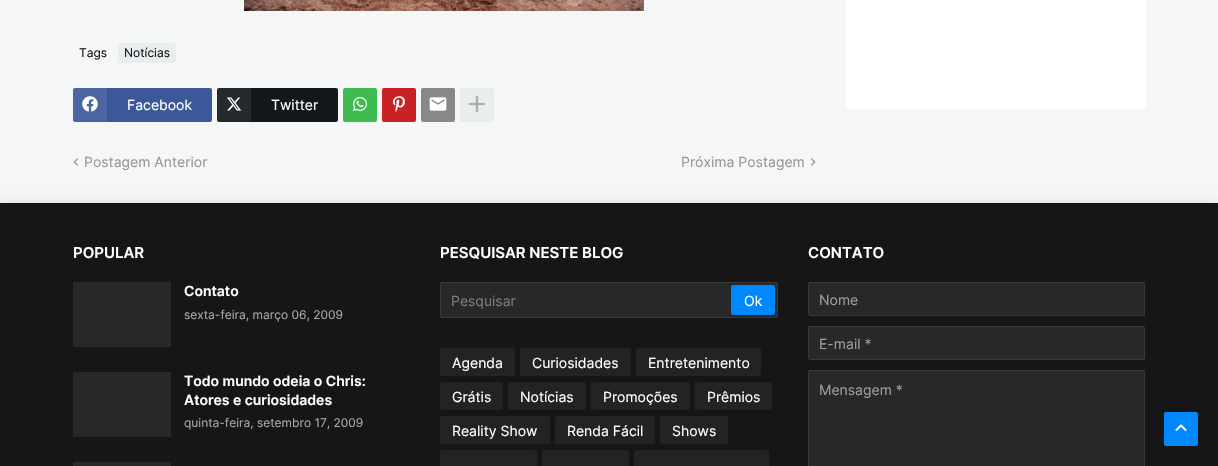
void draw(SkCanvas* canvas) {
	SkPaint paint;
	paint.setAntiAlias(true);
	canvas->clear(0xfff5f6f7);
	canvas->drawImageRect(SkImages::DeferredFromEncodedData(SkData::MakeFromFileName("img1.png")), SkRect::MakeXYWH(244, 0, 400, 11), SkSamplingOptions());
	SkFont f1(fontMgr->matchFamilyStyle("Inter", SkFontStyle::Normal()), 12);
	f1.setSubpixel(true);
	paint.setColor(0xff16161a);
	canvas->drawString("Tags", 79, 57, f1, paint);
	paint.setColor(0xffeaedee);
	canvas->drawRoundRect(SkRect::MakeXYWH(118, 43, 58, 20), 2, 2, paint);
	paint.setColor(0xff16161a);
	canvas->drawString("Notícias", 124, 57, f1, paint);
	paint.setColor(0xff3b5999);
	canvas->drawRoundRect(SkRect::MakeXYWH(73, 88, 139, 34), 2, 2, paint);
	paint.setColor(0x14ffffff);
	canvas->drawRect(SkRect::MakeXYWH(73, 88, 34, 34), paint);
	canvas->drawImageRect(SkImages::DeferredFromEncodedData(SkData::MakeFromFileName("img2.png")), SkRect::MakeXYWH(82, 96, 16, 16), SkSamplingOptions());
	SkFont f2(fontMgr->matchFamilyStyle("Inter", SkFontStyle::Normal()), 14);
	f2.setSubpixel(true);
	paint.setColor(0xffffffff);
	canvas->drawString("Facebook", 127, 110, f2, paint);
	paint.setColor(0xff14171a);
	canvas->drawRoundRect(SkRect::MakeXYWH(217, 88, 121, 34), 2, 2, paint);
	paint.setColor(0x14ffffff);
	canvas->drawRect(SkRect::MakeXYWH(217, 88, 34, 34), paint);
	canvas->drawImageRect(SkImages::DeferredFromEncodedData(SkData::MakeFromFileName("img3.png")), SkRect::MakeXYWH(227, 97, 15, 14), SkSamplingOptions());
	paint.setColor(0xffffffff);
	canvas->drawString("Twitter", 271, 110, f2, paint);
	paint.setColor(0xff3fbb50);
	canvas->drawRoundRect(SkRect::MakeXYWH(343, 88, 34, 34), 2, 2, paint);
	canvas->drawImageRect(SkImages::DeferredFromEncodedData(SkData::MakeFromFileName("img4.png")), SkRect::MakeXYWH(353, 97, 14, 14), SkSamplingOptions());
	paint.setColor(0xffca2127);
	canvas->drawRoundRect(SkRect::MakeXYWH(382, 88, 34, 34), 2, 2, paint);
	canvas->drawImageRect(SkImages::DeferredFromEncodedData(SkData::MakeFromFileName("img5.png")), SkRect::MakeXYWH(393, 96, 12, 16), SkSamplingOptions());
	paint.setColor(0xff888888);
	canvas->drawRoundRect(SkRect::MakeXYWH(421, 88, 34, 34), 2, 2, paint);
	canvas->drawImageRect(SkImages::DeferredFromEncodedData(SkData::MakeFromFileName("img6.png")), SkRect::MakeXYWH(429, 97, 18, 14), SkSamplingOptions());
	paint.setColor(0xffeaedee);
	canvas->drawRoundRect(SkRect::MakeXYWH(460, 88, 34, 34), 2, 2, paint);
	canvas->drawImageRect(SkImages::DeferredFromEncodedData(SkData::MakeFromFileName("img7.png")), SkRect::MakeXYWH(469, 96, 16, 16), SkSamplingOptions());
	canvas->drawImageRect(SkImages::DeferredFromEncodedData(SkData::MakeFromFileName("img8.png")), SkRect::MakeXYWH(73, 158, 5, 8), SkSamplingOptions());
	paint.setColor(0xff979797);
	canvas->drawString("Postagem Anterior", 84, 167, f2, paint);
	canvas->drawString("Próxima Postagem", 681, 167, f2, paint);
	canvas->drawImageRect(SkImages::DeferredFromEncodedData(SkData::MakeFromFileName("img9.png")), SkRect::MakeXYWH(811, 158, 5, 8), SkSamplingOptions());
	paint.setColor(0xffffffff);
	canvas->drawRoundRect(SkRect::MakeXYWH(846, -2, 300, 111), 2, 2, paint);
	paint.setColor(0x1a000000);
	paint.setMaskFilter(SkMaskFilter::MakeBlur(kNormal_SkBlurStyle, 5));
	canvas->drawRect(SkRect::MakeXYWH(0, 203, 1218, 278), paint);
	paint.setMaskFilter(nullptr);
	paint.setColor(0xff161618);
	canvas->drawRect(SkRect::MakeXYWH(0, 203, 1218, 263), paint);
	SkFont f3(fontMgr->matchFamilyStyle("Inter", SkFontStyle(600, SkFontStyle::kNormal_Width, SkFontStyle::kUpright_Slant)), 15);
	f3.setSubpixel(true);
	paint.setColor(0xffffffff);
	canvas->drawString("POPULAR", 73, 258, f3, paint);
	paint.setColor(0xff26282a);
	canvas->drawRect(SkRect::MakeXYWH(73, 282, 98, 65), paint);
	SkFont f4(fontMgr->matchFamilyStyle("Inter", SkFontStyle(600, SkFontStyle::kNormal_Width, SkFontStyle::kUpright_Slant)), 14);
	f4.setSubpixel(true);
	paint.setColor(0xffffffff);
	canvas->drawString("Contato", 184, 296, f4, paint);
	paint.setColor(0xffaaaaaa);
	canvas->drawString("sexta-feira, março 06, 2009", 184, 319, f1, paint);
	paint.setColor(0xff26282a);
	canvas->drawRect(SkRect::MakeXYWH(73, 372, 98, 65), paint);
	paint.setColor(0xffffffff);
	canvas->drawString("Todo mundo odeia o Chris:", 184, 386, f4, paint);
	canvas->drawString("Atores e curiosidades", 184, 405, f4, paint);
	paint.setColor(0xffaaaaaa);
	canvas->drawString("quinta-feira, setembro 17, 2009", 184, 427, f1, paint);
	paint.setColor(0xff26282a);
	canvas->drawRect(SkRect::MakeXYWH(73, 462, 98, 4), paint);
	paint.setColor(0xffffffff);
	canvas->drawString("PESQUISAR NESTE BLOG", 440, 258, f3, paint);
	paint.setColor(0xff26282a);
	canvas->drawRoundRect(SkRect::MakeXYWH(440.5, 282.5, 337, 35), 1.5, 1.5, paint);
	paint.setStroke(true);
	paint.setStrokeWidth(1);
	paint.setColor(0xff38393b);
	canvas->drawRoundRect(SkRect::MakeXYWH(440.5, 282.5, 337, 35), 1.5, 1.5, paint);
	paint.setStroke(false);
	paint.setColor(0xff7c7d7d);
	canvas->drawString("Pesquisar", 451, 306, f2, paint);
	paint.setColor(0xff0088ff);
	canvas->drawRoundRect(SkRect::MakeXYWH(731, 285, 44, 30), 2, 2, paint);
	paint.setColor(0xffffffff);
	canvas->drawString("Ok", 744, 306, f2, paint);
	paint.setColor(0xff232325);
	canvas->drawRoundRect(SkRect::MakeXYWH(440, 348, 75, 28), 2, 2, paint);
	paint.setColor(0xffffffff);
	canvas->drawString("Agenda", 452, 368, f2, paint);
	paint.setColor(0xff232325);
	canvas->drawRoundRect(SkRect::MakeXYWH(520, 348, 111, 28), 2, 2, paint);
	paint.setColor(0xffffffff);
	canvas->drawString("Curiosidades", 532, 368, f2, paint);
	paint.setColor(0xff232325);
	canvas->drawRoundRect(SkRect::MakeXYWH(636, 348, 125, 28), 2, 2, paint);
	paint.setColor(0xffffffff);
	canvas->drawString("Entretenimento", 648, 368, f2, paint);
	paint.setColor(0xff232325);
	canvas->drawRoundRect(SkRect::MakeXYWH(440, 382, 63, 28), 2, 2, paint);
	paint.setColor(0xffffffff);
	canvas->drawString("Grátis", 452, 402, f2, paint);
	paint.setColor(0xff232325);
	canvas->drawRoundRect(SkRect::MakeXYWH(508, 382, 78, 28), 2, 2, paint);
	paint.setColor(0xffffffff);
	canvas->drawString("Notícias", 520, 402, f2, paint);
	paint.setColor(0xff232325);
	canvas->drawRoundRect(SkRect::MakeXYWH(591, 382, 99, 28), 2, 2, paint);
	paint.setColor(0xffffffff);
	canvas->drawString("Promoções", 603, 402, f2, paint);
	paint.setColor(0xff232325);
	canvas->drawRoundRect(SkRect::MakeXYWH(695, 382, 77, 28), 2, 2, paint);
	paint.setColor(0xffffffff);
	canvas->drawString("Prêmios", 707, 402, f2, paint);
	paint.setColor(0xff232325);
	canvas->drawRoundRect(SkRect::MakeXYWH(440, 416, 110, 28), 2, 2, paint);
	paint.setColor(0xffffffff);
	canvas->drawString("Reality Show", 452, 436, f2, paint);
	paint.setColor(0xff232325);
	canvas->drawRoundRect(SkRect::MakeXYWH(555, 416, 100, 28), 2, 2, paint);
	paint.setColor(0xffffffff);
	canvas->drawString("Renda Fácil", 567, 436, f2, paint);
	paint.setColor(0xff232325);
	canvas->drawRoundRect(SkRect::MakeXYWH(660, 416, 68, 28), 2, 2, paint);
	paint.setColor(0xffffffff);
	canvas->drawString("Shows", 672, 436, f2, paint);
	paint.setColor(0xff232325);
	canvas->drawRoundRect(SkRect::MakeXYWH(440, 450, 97, 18), 2, 2, paint);
	canvas->drawRoundRect(SkRect::MakeXYWH(542, 450, 87, 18), 2, 2, paint);
	canvas->drawRoundRect(SkRect::MakeXYWH(634, 450, 135, 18), 2, 2, paint);
	paint.setColor(0xffffffff);
	canvas->drawString("CONTATO", 808, 258, f3, paint);
	paint.setColor(0xff26282a);
	canvas->drawRoundRect(SkRect::MakeXYWH(808.5, 282.5, 336, 33), 1.5, 1.5, paint);
	paint.setStroke(true);
	paint.setColor(0xff38393b);
	canvas->drawRoundRect(SkRect::MakeXYWH(808.5, 282.5, 336, 33), 1.5, 1.5, paint);
	paint.setStroke(false);
	paint.setColor(0xff9d9d9d);
	canvas->drawString("Nome", 819, 305, f2, paint);
	paint.setColor(0xff26282a);
	canvas->drawRoundRect(SkRect::MakeXYWH(808.5, 326.5, 336, 33), 1.5, 1.5, paint);
	paint.setStroke(true);
	paint.setColor(0xff38393b);
	canvas->drawRoundRect(SkRect::MakeXYWH(808.5, 326.5, 336, 33), 1.5, 1.5, paint);
	paint.setStroke(false);
	paint.setColor(0xff9d9d9d);
	canvas->drawString("E-mail *", 819, 349, f2, paint);
	paint.setColor(0xff26282a);
	canvas->drawRoundRect(SkRect::MakeXYWH(808.5, 370.5, 336, 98), 1.5, 1.5, paint);
	paint.setStroke(true);
	paint.setColor(0xff38393b);
	canvas->drawRoundRect(SkRect::MakeXYWH(808.5, 370.5, 336, 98), 1.5, 1.5, paint);
	paint.setStroke(false);
	paint.setColor(0xff9d9d9d);
	canvas->drawString("Mensagem *", 819, 395, f2, paint);
	paint.setColor(0xff0088ff);
	canvas->drawRoundRect(SkRect::MakeXYWH(1164, 412, 34, 34), 2, 2, paint);
	canvas->drawImageRect(SkImages::DeferredFromEncodedData(SkData::MakeFromFileName("img10.png")), SkRect::MakeXYWH(1175, 424, 12, 7), SkSamplingOptions());
}
